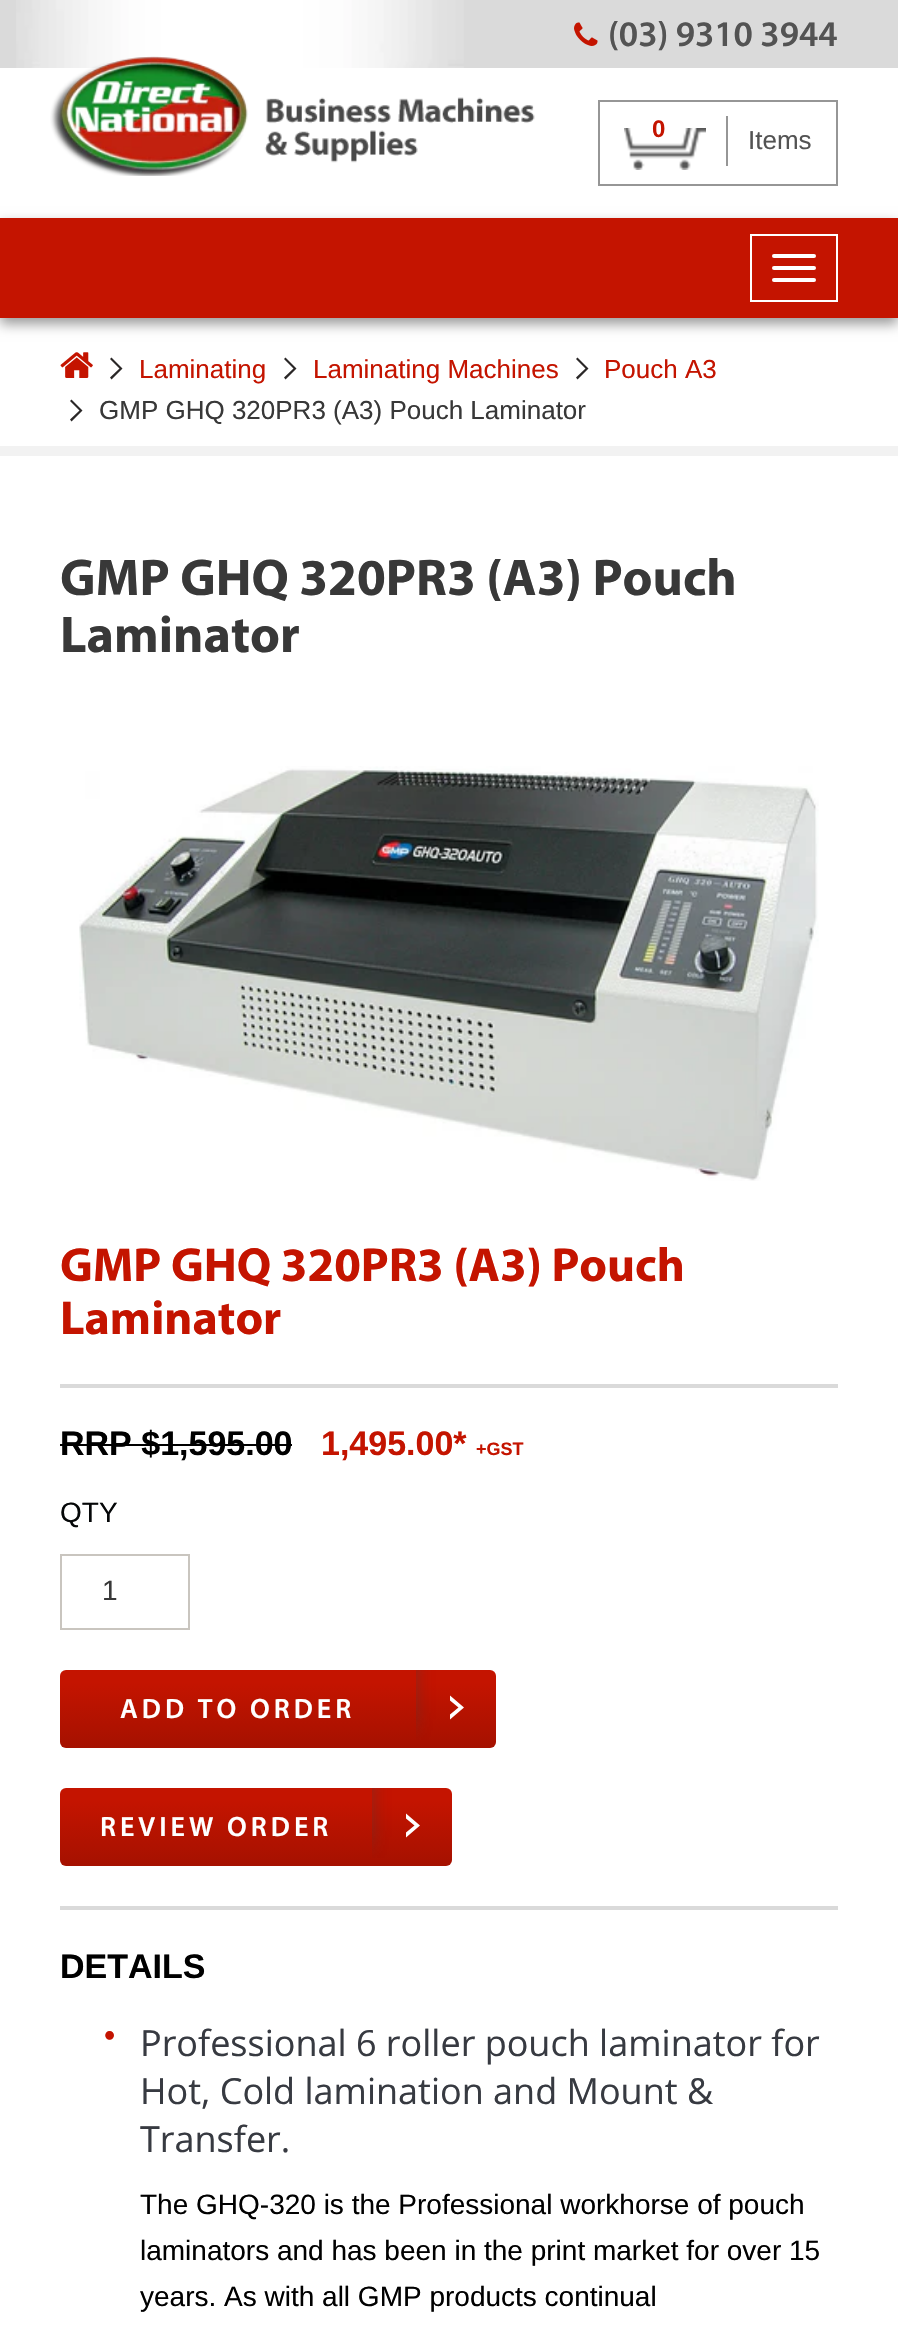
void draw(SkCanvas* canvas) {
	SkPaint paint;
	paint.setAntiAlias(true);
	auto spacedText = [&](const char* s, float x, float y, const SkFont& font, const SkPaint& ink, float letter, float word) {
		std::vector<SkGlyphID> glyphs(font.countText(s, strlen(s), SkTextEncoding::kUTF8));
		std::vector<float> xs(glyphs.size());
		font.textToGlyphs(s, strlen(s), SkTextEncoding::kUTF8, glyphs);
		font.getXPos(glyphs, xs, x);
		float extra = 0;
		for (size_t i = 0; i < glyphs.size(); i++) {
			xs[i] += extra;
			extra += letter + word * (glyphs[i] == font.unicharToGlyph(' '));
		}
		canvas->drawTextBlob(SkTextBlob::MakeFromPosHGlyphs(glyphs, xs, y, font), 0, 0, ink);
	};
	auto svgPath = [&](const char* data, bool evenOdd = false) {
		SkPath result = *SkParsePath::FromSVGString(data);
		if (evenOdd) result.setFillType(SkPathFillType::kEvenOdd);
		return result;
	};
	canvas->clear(0xffffffff);
	paint.setColor(0xffdadada);
	canvas->drawRect(SkRect::MakeXYWH(0, 0, 898, 68), paint);
	canvas->drawImageRect(SkImages::DeferredFromEncodedData(SkData::MakeFromFileName("img1.png")), SkRect::MakeXYWH(16, 0, 448, 68), SkSamplingOptions());
	canvas->drawImageRect(SkImages::DeferredFromEncodedData(SkData::MakeFromFileName("img2.png")), SkRect::MakeXYWH(574, 22, 24, 24), SkSamplingOptions());
	SkFont f1(fontMgr->matchFamilyStyle("Myriad", SkFontStyle(600, SkFontStyle::kNormal_Width, SkFontStyle::kUpright_Slant)), 36);
	f1.setSubpixel(true);
	paint.setColor(0xff535353);
	canvas->drawString("(03) 9310 3944", 608, 46, f1, paint);
	canvas->drawImageRect(SkImages::DeferredFromEncodedData(SkData::MakeFromFileName("img3.png")), SkRect::MakeXYWH(50, 56, 485, 120), SkSamplingOptions());
	paint.setStroke(true);
	paint.setStrokeWidth(2);
	paint.setColor(0xff969696);
	canvas->drawRect(SkRect::MakeXYWH(599, 101, 238, 84), paint);
	canvas->drawImageRect(SkImages::DeferredFromEncodedData(SkData::MakeFromFileName("img4.png")), SkRect::MakeXYWH(624, 128, 82, 42), SkSamplingOptions());
	SkFont f2(fontMgr->matchFamilyStyle("Liberation Sans", SkFontStyle::Bold()), 24);
	f2.setSubpixel(true);
	paint.setStroke(false);
	paint.setColor(0xffc41400);
	canvas->drawString("0", 652, 137, f2, paint);
	paint.setColor(0xff969696);
	canvas->drawRect(SkRect::MakeXYWH(726, 116, 2, 50), paint);
	SkFont f3(fontMgr->matchFamilyStyle("Liberation Sans", SkFontStyle::Normal()), 26);
	f3.setSubpixel(true);
	paint.setColor(0xff535353);
	canvas->drawString("Items", 748, 149, f3, paint);
	paint.setColor(0x66000000);
	paint.setMaskFilter(SkMaskFilter::MakeBlur(kNormal_SkBlurStyle, 6));
	canvas->drawRect(SkRect::MakeXYWH(0, 224, 898, 100), paint);
	paint.setMaskFilter(nullptr);
	paint.setColor(0xffc41400);
	canvas->drawRect(SkRect::MakeXYWH(0, 218, 898, 100), paint);
	paint.setStroke(true);
	paint.setColor(0xffffffff);
	canvas->drawRect(SkRect::MakeXYWH(751, 235, 86, 66), paint);
	paint.setStroke(false);
	canvas->drawRoundRect(SkRect::MakeXYWH(772, 254, 44, 4), 2, 2, paint);
	canvas->drawRoundRect(SkRect::MakeXYWH(772, 266, 44, 4), 2, 2, paint);
	canvas->drawRoundRect(SkRect::MakeXYWH(772, 278, 44, 4), 2, 2, paint);
	canvas->drawImageRect(SkImages::DeferredFromEncodedData(SkData::MakeFromFileName("img5.png")), SkRect::MakeXYWH(60, 352, 33, 26), SkSamplingOptions());
	paint.setColor(0xff2a2727);
	canvas->drawPath(svgPath("M111.5 379.5L110 377.5L119.5 368.5L110 359L111.5 357.5L122.5 368.5Z"), paint);
	paint.setColor(0xffc41400);
	canvas->drawString("Laminating", 139, 378, f3, paint);
	paint.setColor(0xff2a2727);
	canvas->drawPath(svgPath("M285.5 379.5L284 377.5L293.5 368.5L284 359L285.5 357.5L296.5 368.5Z"), paint);
	paint.setColor(0xffc41400);
	canvas->drawString("Laminating Machines", 313, 378, f3, paint);
	paint.setColor(0xff2a2727);
	canvas->drawPath(svgPath("M577.5 379.5L576 377.5L585.5 368.5L576 359L577.5 357.5L588.5 368.5Z"), paint);
	paint.setColor(0xffc41400);
	canvas->drawString("Pouch A3", 604, 378, f3, paint);
	paint.setColor(0xff2a2727);
	canvas->drawPath(svgPath("M71.5 421.5L70 419.5L79.5 410.5L70 401L71.5 399.5L82.5 410.5Z"), paint);
	paint.setColor(0xff383838);
	canvas->drawString("GMP GHQ 320PR3 (A3) Pouch Laminator", 99, 419, f3, paint);
	paint.setColor(0xfff2f2f2);
	canvas->drawRect(SkRect::MakeXYWH(0, 446, 898, 10), paint);
	SkFont f4(fontMgr->matchFamilyStyle("Myriad", SkFontStyle::Bold()), 52);
	f4.setSubpixel(true);
	paint.setColor(0xff383838);
	canvas->drawString("GMP GHQ 320PR3 (A3) Pouch", 60, 595, f4, paint);
	canvas->drawString("Laminator", 60, 652, f4, paint);
	canvas->drawImageRect(SkImages::DeferredFromEncodedData(SkData::MakeFromFileName("img6.png")), SkRect::MakeXYWH(79, 766, 740, 415), SkSamplingOptions());
	SkFont f5(fontMgr->matchFamilyStyle("Myriad", SkFontStyle::Bold()), 48);
	f5.setSubpixel(true);
	paint.setColor(0xffc41400);
	canvas->drawString("GMP GHQ 320PR3 (A3) Pouch", 60, 1281, f5, paint);
	canvas->drawString("Laminator", 60, 1334, f5, paint);
	paint.setColor(0xffdadada);
	canvas->drawRect(SkRect::MakeXYWH(60, 1384, 778, 4), paint);
	SkFont f6(fontMgr->matchFamilyStyle("Liberation Sans", SkFontStyle::Bold()), 34);
	f6.setSubpixel(true);
	paint.setColor(0xff000000);
	canvas->drawString("RRP $1,595.00", 60, 1455, f6, paint);
	canvas->drawRect(SkRect::MakeXYWH(60, 1444, 232, 2), paint);
	paint.setColor(0xffc41400);
	canvas->drawString("1,495.00*", 321, 1455, f6, paint);
	SkFont f7(fontMgr->matchFamilyStyle("Liberation Sans", SkFontStyle::Bold()), 18);
	f7.setSubpixel(true);
	canvas->drawString("+GST", 476, 1455, f7, paint);
	SkFont f8(fontMgr->matchFamilyStyle("Liberation Sans", SkFontStyle::Normal()), 28);
	f8.setSubpixel(true);
	paint.setColor(0xff050708);
	canvas->drawString("QTY", 60, 1522, f8, paint);
	paint.setStroke(true);
	paint.setColor(0xffc9c5bf);
	canvas->drawRect(SkRect::MakeXYWH(61, 1555, 128, 74), paint);
	paint.setStroke(false);
	paint.setColor(0xff383838);
	canvas->drawString("1", 102, 1600, f8, paint);
	canvas->drawImageRect(SkImages::DeferredFromEncodedData(SkData::MakeFromFileName("img7.png")), SkRect::MakeXYWH(60, 1670, 436, 78), SkSamplingOptions());
	SkFont f9(fontMgr->matchFamilyStyle("Myriad", SkFontStyle(600, SkFontStyle::kNormal_Width, SkFontStyle::kUpright_Slant)), 28);
	f9.setSubpixel(true);
	paint.setColor(0xffffffff);
	spacedText("ADD TO ORDER", 120, 1718, f9, paint, 4, 0);
	canvas->drawPath(svgPath("M450 1700.5L458.5 1707.5L450 1714.5V1719.5L464 1707.5L450 1695.5Z"), paint);
	canvas->drawImageRect(SkImages::DeferredFromEncodedData(SkData::MakeFromFileName("img8.png")), SkRect::MakeXYWH(60, 1788, 392, 78), SkSamplingOptions());
	spacedText("REVIEW ORDER", 100, 1836, f9, paint, 4, 0);
	canvas->drawPath(svgPath("M406 1818.5L414.5 1825.5L406 1832.5V1837.5L420 1825.5L406 1813.5Z"), paint);
	paint.setColor(0xffdadada);
	canvas->drawRect(SkRect::MakeXYWH(60, 1906, 778, 4), paint);
	paint.setColor(0xff000000);
	canvas->drawString("DETAILS", 60, 1978, f6, paint);
	SkFont f10(fontMgr->matchFamilyStyle("Liberation Sans", SkFontStyle::Normal()), 32);
	f10.setSubpixel(true);
	paint.setColor(0xffc41400);
	canvas->drawString("•", 104, 2046, f10, paint);
	SkFont f11(fontMgr->matchFamilyStyle("Open Sans", SkFontStyle::Normal()), 36);
	f11.setSubpixel(true);
	paint.setColor(0xff373a41);
	canvas->drawString("Professional 6 roller pouch laminator for", 140, 2056, f11, paint);
	canvas->drawString("Hot, Cold lamination and Mount &", 140, 2104, f11, paint);
	canvas->drawString("Transfer.", 140, 2152, f11, paint);
	paint.setColor(0xff000000);
	canvas->drawString("The GHQ-320 is the Professional workhorse of pouch", 140, 2214, f8, paint);
	canvas->drawString("laminators and has been in the print market for over 15", 140, 2260, f8, paint);
	canvas->drawString("years. As with all GMP products continual", 140, 2306, f8, paint);
}
